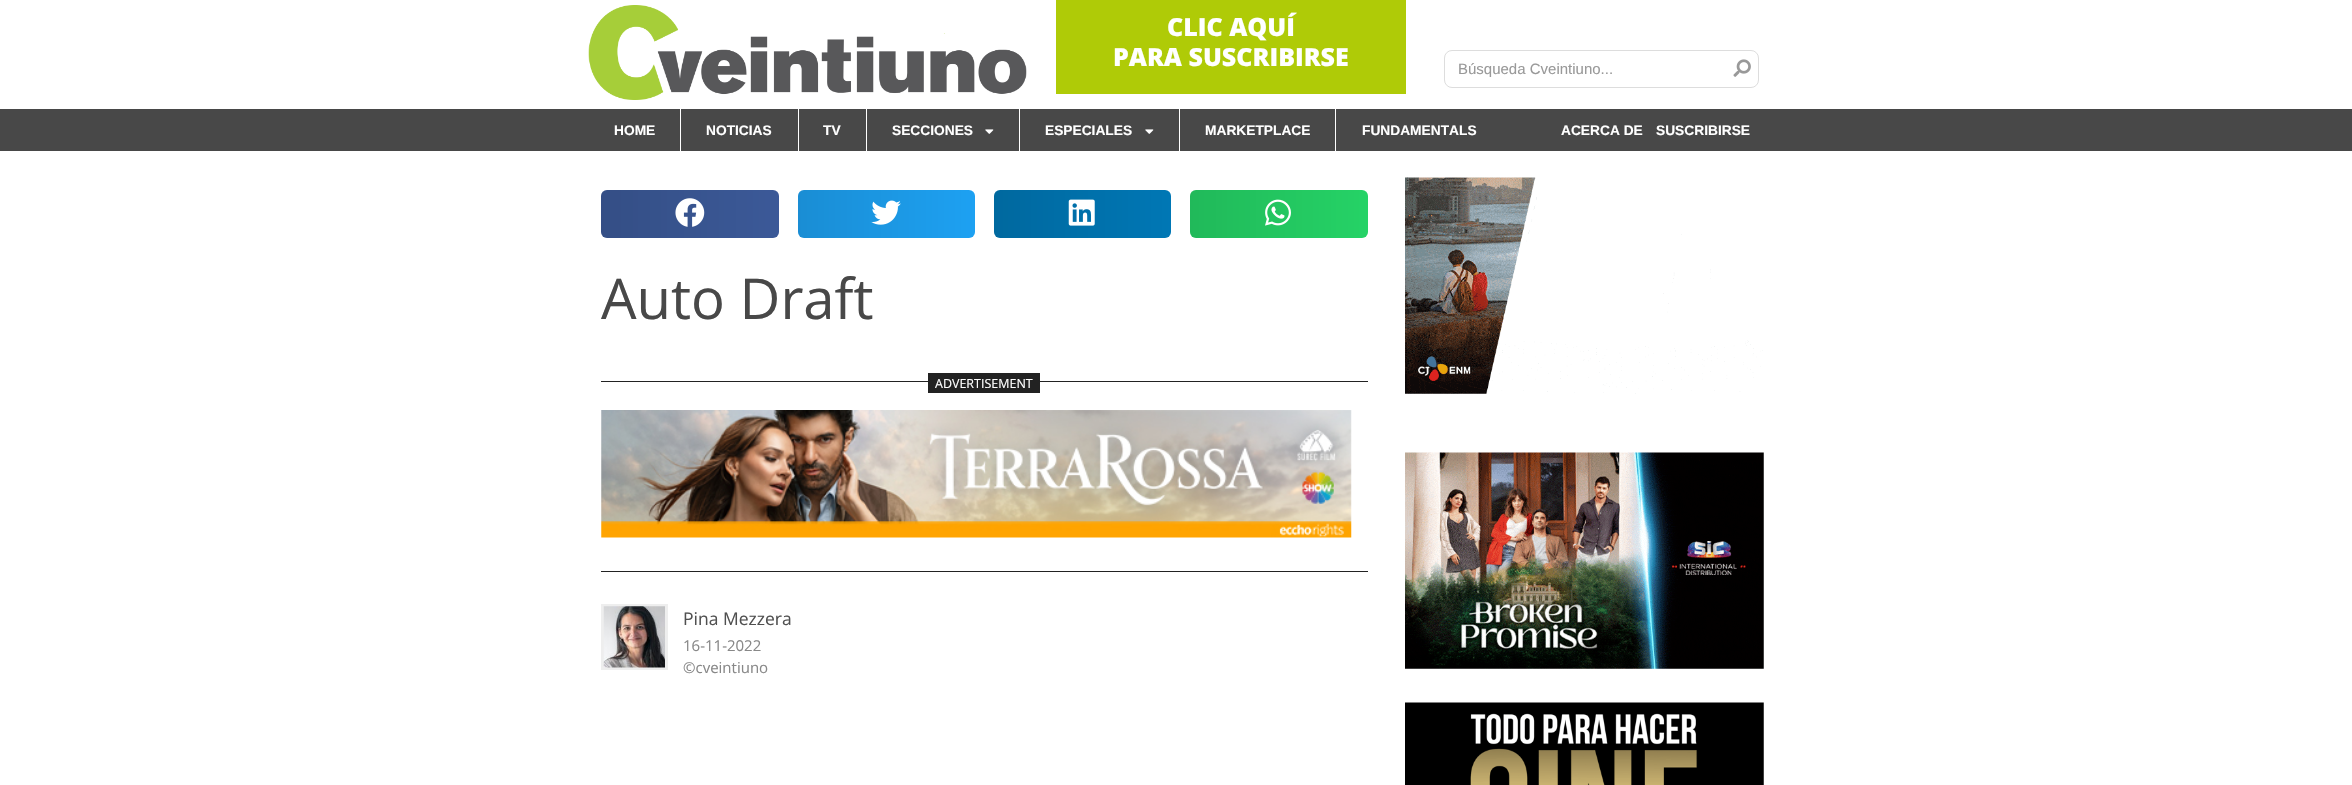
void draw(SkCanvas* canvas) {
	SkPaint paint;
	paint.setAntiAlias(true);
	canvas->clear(0xffffffff);
	canvas->drawImageRect(SkImages::DeferredFromEncodedData(SkData::MakeFromFileName("img1.png")), SkRect::MakeXYWH(588, 5, 439, 95), SkSamplingOptions());
	paint.setColor(0xffafcb07);
	canvas->drawRect(SkRect::MakeXYWH(1056, 0, 350, 94), paint);
	SkFont f1(fontMgr->matchFamilyStyle("Open Sans", SkFontStyle(800, SkFontStyle::kNormal_Width, SkFontStyle::kUpright_Slant)), 25);
	f1.setSubpixel(true);
	paint.setColor(0xffffffff);
	canvas->drawString("CLIC AQUÍ", 1167, 36, f1, paint);
	canvas->drawString("PARA SUSCRIBIRSE", 1113, 66, f1, paint);
	paint.setStroke(true);
	paint.setStrokeWidth(1);
	paint.setColor(0xffdddddd);
	canvas->drawRoundRect(SkRect::MakeXYWH(1444.5, 50.5, 314, 37), 7.5, 7.5, paint);
	SkFont f2(fontMgr->matchFamilyStyle("Liberation Sans", SkFontStyle::Normal()), 15);
	f2.setSubpixel(true);
	paint.setStroke(false);
	paint.setColor(0xff999999);
	canvas->drawString("Búsqueda Cveintiuno...", 1458, 74, f2, paint);
	canvas->drawImageRect(SkImages::DeferredFromEncodedData(SkData::MakeFromFileName("img2.png")), SkRect::MakeXYWH(1733, 59, 18, 18), SkSamplingOptions());
	paint.setColor(0xff484848);
	canvas->drawRect(SkRect::MakeXYWH(0, 109, 2352, 42), paint);
	SkFont f3(fontMgr->matchFamilyStyle("Liberation Sans", SkFontStyle::Bold()), 13.75);
	f3.setSubpixel(true);
	paint.setColor(0xffffffff);
	canvas->drawString("HOME", 614, 135, f3, paint);
	canvas->drawRect(SkRect::MakeXYWH(680, 109, 1, 42), paint);
	canvas->drawString("NOTICIAS", 706, 135, f3, paint);
	canvas->drawRect(SkRect::MakeXYWH(798, 109, 1, 42), paint);
	canvas->drawString("TV", 823, 135, f3, paint);
	canvas->drawRect(SkRect::MakeXYWH(866, 109, 1, 42), paint);
	canvas->drawString("SECCIONES", 892, 135, f3, paint);
	canvas->drawImageRect(SkImages::DeferredFromEncodedData(SkData::MakeFromFileName("img3.png")), SkRect::MakeXYWH(985, 129, 9, 5), SkSamplingOptions());
	canvas->drawRect(SkRect::MakeXYWH(1019, 109, 1, 42), paint);
	canvas->drawString("ESPECIALES", 1045, 135, f3, paint);
	canvas->drawImageRect(SkImages::DeferredFromEncodedData(SkData::MakeFromFileName("img3.png")), SkRect::MakeXYWH(1145, 129, 9, 5), SkSamplingOptions());
	canvas->drawRect(SkRect::MakeXYWH(1179, 109, 1, 42), paint);
	canvas->drawString("MARKETPLACE", 1205, 135, f3, paint);
	canvas->drawRect(SkRect::MakeXYWH(1335, 109, 1, 42), paint);
	canvas->drawString("FUNDAMENTALS", 1362, 135, f3, paint);
	canvas->drawString("ACERCA DE", 1561, 135, f3, paint);
	canvas->drawString("SUSCRIBIRSE", 1656, 135, f3, paint);
	paint.setColor(0xff3b5998);
	canvas->drawRoundRect(SkRect::MakeXYWH(601, 190, 178, 48), 6, 6, paint);
	{
		const SkColor colors[] = {0x1f000000, 0x00000000};
		const float stops[] = {0, 1};
		const SkPoint ends[] = {{601, 214}, {779, 214}};
		paint.setShader(SkGradientShader::MakeLinear(ends, colors, stops, 2, SkTileMode::kClamp));
		paint.setAlpha(255);
	}
	canvas->drawRoundRect(SkRect::MakeXYWH(601, 190, 178, 48), 6, 6, paint);
	canvas->drawImageRect(SkImages::DeferredFromEncodedData(SkData::MakeFromFileName("img4.png")), SkRect::MakeXYWH(675, 198, 30, 29), SkSamplingOptions());
	paint.setShader(nullptr);
	paint.setColor(0xff1da1f2);
	canvas->drawRoundRect(SkRect::MakeXYWH(798, 190, 177, 48), 6, 6, paint);
	{
		const SkColor colors[] = {0x1f000000, 0x00000000};
		const float stops[] = {0, 1};
		const SkPoint ends[] = {{798, 214}, {975, 214}};
		paint.setShader(SkGradientShader::MakeLinear(ends, colors, stops, 2, SkTileMode::kClamp));
		paint.setAlpha(255);
	}
	canvas->drawRoundRect(SkRect::MakeXYWH(798, 190, 177, 48), 6, 6, paint);
	canvas->drawImageRect(SkImages::DeferredFromEncodedData(SkData::MakeFromFileName("img5.png")), SkRect::MakeXYWH(871, 200, 30, 25), SkSamplingOptions());
	paint.setShader(nullptr);
	paint.setColor(0xff0077b5);
	canvas->drawRoundRect(SkRect::MakeXYWH(994, 190, 177, 48), 6, 6, paint);
	{
		const SkColor colors[] = {0x1f000000, 0x00000000};
		const float stops[] = {0, 1};
		const SkPoint ends[] = {{994, 214}, {1171, 214}};
		paint.setShader(SkGradientShader::MakeLinear(ends, colors, stops, 2, SkTileMode::kClamp));
		paint.setAlpha(255);
	}
	canvas->drawRoundRect(SkRect::MakeXYWH(994, 190, 177, 48), 6, 6, paint);
	canvas->drawImageRect(SkImages::DeferredFromEncodedData(SkData::MakeFromFileName("img6.png")), SkRect::MakeXYWH(1068, 199, 27, 27), SkSamplingOptions());
	paint.setShader(nullptr);
	paint.setColor(0xff25d366);
	canvas->drawRoundRect(SkRect::MakeXYWH(1190, 190, 178, 48), 6, 6, paint);
	{
		const SkColor colors[] = {0x1f000000, 0x00000000};
		const float stops[] = {0, 1};
		const SkPoint ends[] = {{1190, 214}, {1368, 214}};
		paint.setShader(SkGradientShader::MakeLinear(ends, colors, stops, 2, SkTileMode::kClamp));
		paint.setAlpha(255);
	}
	canvas->drawRoundRect(SkRect::MakeXYWH(1190, 190, 178, 48), 6, 6, paint);
	canvas->drawImageRect(SkImages::DeferredFromEncodedData(SkData::MakeFromFileName("img7.png")), SkRect::MakeXYWH(1265, 199, 26, 27), SkSamplingOptions());
	SkFont f4(fontMgr->matchFamilyStyle("Open Sans", SkFontStyle::Normal()), 56.25);
	f4.setSubpixel(true);
	paint.setShader(nullptr);
	paint.setColor(0xff484848);
	canvas->drawString("Auto Draft", 601, 319, f4, paint);
	paint.setColor(0xff222222);
	canvas->drawRect(SkRect::MakeXYWH(601, 381, 767, 1), paint);
	canvas->drawRect(SkRect::MakeXYWH(601, 571, 767, 1), paint);
	canvas->drawRect(SkRect::MakeXYWH(928, 373, 112, 20), paint);
	SkFont f5(fontMgr->matchFamilyStyle("Open Sans", SkFontStyle::Normal()), 12.5);
	f5.setSubpixel(true);
	paint.setColor(0xffffffff);
	canvas->drawString("ADVERTISEMENT", 935, 388, f5, paint);
	canvas->drawImageRect(SkImages::DeferredFromEncodedData(SkData::MakeFromFileName("img8.png")), SkRect::MakeXYWH(601, 410, 751, 128), SkSamplingOptions());
	paint.setStroke(true);
	paint.setStrokeWidth(3);
	paint.setColor(0xffeeeeee);
	canvas->drawRect(SkRect::MakeXYWH(602.5, 605.5, 64, 63), paint);
	canvas->drawImageRect(SkImages::DeferredFromEncodedData(SkData::MakeFromFileName("img9.png")), SkRect::MakeXYWH(603, 606, 62, 62), SkSamplingOptions());
	SkFont f6(fontMgr->matchFamilyStyle("Open Sans", SkFontStyle::Normal()), 17.5);
	f6.setSubpixel(true);
	paint.setStroke(false);
	paint.setColor(0xff505050);
	canvas->drawString("Pina Mezzera", 683, 625, f6, paint);
	SkFont f7(fontMgr->matchFamilyStyle("Open Sans", SkFontStyle::Normal()), 15);
	f7.setSubpixel(true);
	paint.setColor(0xff888888);
	canvas->drawString("16-11-2022", 683, 651, f7, paint);
	canvas->drawString("©cveintiuno", 683, 673, f7, paint);
	canvas->drawImageRect(SkImages::DeferredFromEncodedData(SkData::MakeFromFileName("img10.png")), SkRect::MakeXYWH(1405, 177, 358, 217), SkSamplingOptions());
	canvas->drawImageRect(SkImages::DeferredFromEncodedData(SkData::MakeFromFileName("img11.png")), SkRect::MakeXYWH(1405, 452, 359, 217), SkSamplingOptions());
	canvas->drawImageRect(SkImages::DeferredFromEncodedData(SkData::MakeFromFileName("img12.png")), SkRect::MakeXYWH(1405, 702, 359, 83), SkSamplingOptions());
}
